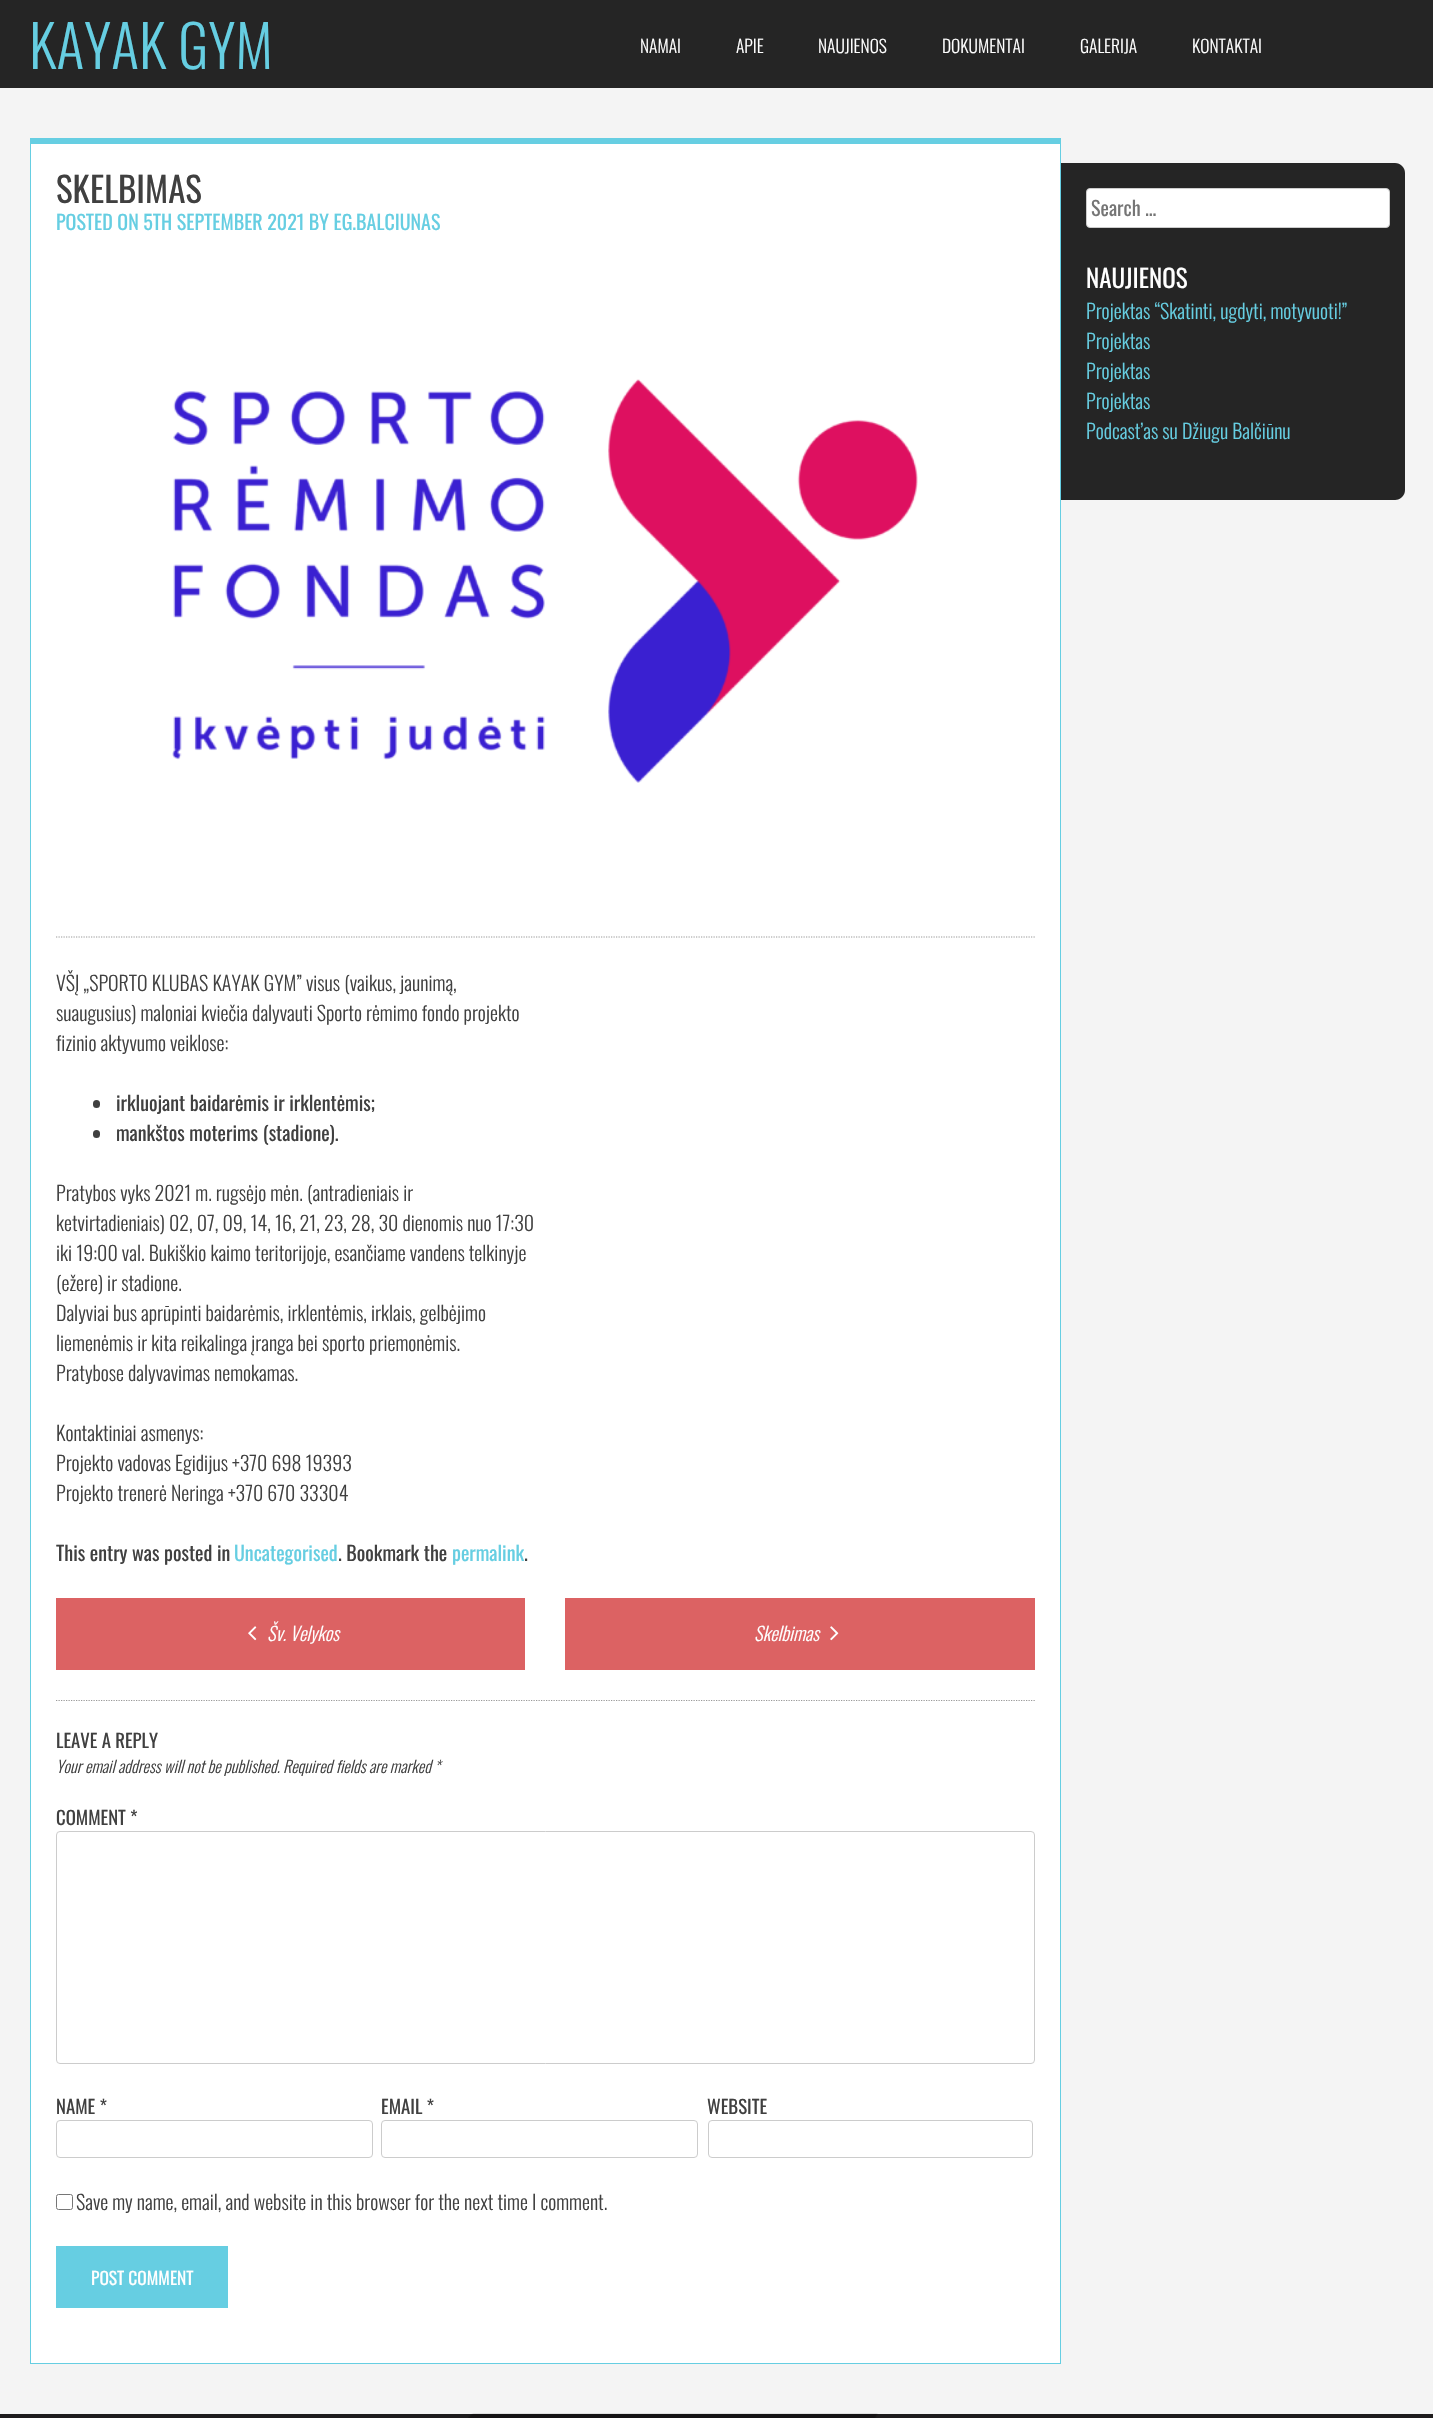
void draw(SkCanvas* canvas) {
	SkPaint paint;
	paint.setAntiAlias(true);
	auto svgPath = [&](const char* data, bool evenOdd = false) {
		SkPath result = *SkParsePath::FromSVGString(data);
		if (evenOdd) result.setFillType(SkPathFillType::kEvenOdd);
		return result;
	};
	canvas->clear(0xfff4f4f4);
	paint.setColor(0xff252525);
	canvas->drawRect(SkRect::MakeXYWH(0, 0, 1433, 88), paint);
	SkFont f1(fontMgr->matchFamilyStyle("Oswald", SkFontStyle(300, SkFontStyle::kNormal_Width, SkFontStyle::kUpright_Slant)), 58);
	f1.setSubpixel(true);
	paint.setColor(0xff66cee2);
	canvas->drawString("KAYAK GYM", 29, 69, f1, paint);
	SkFont f2(fontMgr->matchFamilyStyle("Oswald", SkFontStyle(300, SkFontStyle::kNormal_Width, SkFontStyle::kUpright_Slant)), 17.5);
	f2.setSubpixel(true);
	paint.setColor(0xffffffff);
	canvas->drawString("NAMAI", 640, 53, f2, paint);
	canvas->drawString("APIE", 736, 53, f2, paint);
	canvas->drawString("NAUJIENOS", 818, 53, f2, paint);
	canvas->drawString("DOKUMENTAI", 942, 53, f2, paint);
	canvas->drawString("GALERIJA", 1080, 53, f2, paint);
	canvas->drawString("KONTAKTAI", 1192, 53, f2, paint);
	canvas->drawRect(SkRect::MakeXYWH(31, 144, 1029, 2219), paint);
	paint.setColor(0xff66cee2);
	canvas->drawRect(SkRect::MakeXYWH(30, 138, 1031, 6), paint);
	canvas->drawRect(SkRect::MakeXYWH(1060, 138, 1, 2226), paint);
	canvas->drawRect(SkRect::MakeXYWH(30, 2363, 1031, 1), paint);
	canvas->drawRect(SkRect::MakeXYWH(30, 138, 1, 2226), paint);
	paint.setStroke(true);
	paint.setStrokeWidth(1.2);
	paint.setColor(0xff999999);
	paint.setPathEffect(SkDashPathEffect::Make({{1.25f, 1.25f}}, 0));
	canvas->drawPath(svgPath("M56 937H1035"), paint);
	paint.setPathEffect(nullptr);
	SkFont f3(fontMgr->matchFamilyStyle("Oswald", SkFontStyle::Normal()), 35);
	f3.setSubpixel(true);
	paint.setStroke(false);
	paint.setColor(0xff404040);
	canvas->drawString("SKELBIMAS", 56, 203, f3, paint);
	SkFont f4(fontMgr->matchFamilyStyle("Oswald", SkFontStyle::Normal()), 20);
	f4.setSubpixel(true);
	paint.setColor(0xff66cee2);
	canvas->drawString("POSTED ON 5TH SEPTEMBER 2021 BY EG.BALCIUNAS", 56, 230, f4, paint);
	canvas->drawImageRect(SkImages::DeferredFromEncodedData(SkData::MakeFromFileName("img1.png")), SkRect::MakeXYWH(172, 379, 746, 404), SkSamplingOptions());
	SkFont f5(fontMgr->matchFamilyStyle("Oswald", SkFontStyle(300, SkFontStyle::kNormal_Width, SkFontStyle::kUpright_Slant)), 20);
	f5.setSubpixel(true);
	paint.setColor(0xff404040);
	canvas->drawString("VŠĮ „SPORTO KLUBAS KAYAK GYM” visus (vaikus, jaunimą,", 56, 991, f5, paint);
	canvas->drawString("suaugusius) maloniai kviečia dalyvauti Sporto rėmimo fondo projekto", 56, 1021, f5, paint);
	canvas->drawString("fizinio aktyvumo veiklose:", 56, 1051, f5, paint);
	canvas->drawRoundRect(SkRect::MakeXYWH(93, 1100, 7, 8), 3.5, 3.5, paint);
	canvas->drawString("irkluojant baidarėmis ir irklentėmis;", 116, 1111, f4, paint);
	canvas->drawRoundRect(SkRect::MakeXYWH(93, 1130, 7, 8), 3.5, 3.5, paint);
	canvas->drawString("mankštos moterims (stadione).", 116, 1141, f4, paint);
	canvas->drawString("Pratybos vyks 2021 m. rugsėjo mėn. (antradieniais ir", 56, 1201, f5, paint);
	canvas->drawString("ketvirtadieniais) 02, 07, 09, 14, 16, 21, 23, 28, 30 dienomis nuo 17:30", 56, 1231, f5, paint);
	canvas->drawString("iki 19:00 val. Bukiškio kaimo teritorijoje, esančiame vandens telkinyje", 56, 1261, f5, paint);
	canvas->drawString("(ežere) ir stadione.", 56, 1291, f5, paint);
	canvas->drawString("Dalyviai bus aprūpinti baidarėmis, irklentėmis, irklais, gelbėjimo", 56, 1321, f5, paint);
	canvas->drawString("liemenėmis ir kita reikalinga įranga bei sporto priemonėmis.", 56, 1351, f5, paint);
	canvas->drawString("Pratybose dalyvavimas nemokamas.", 56, 1381, f5, paint);
	canvas->drawString("Kontaktiniai asmenys:", 56, 1441, f5, paint);
	canvas->drawString("Projekto vadovas Egidijus +370 698 19393", 56, 1471, f5, paint);
	canvas->drawString("Projekto trenerė Neringa +370 670 33304", 56, 1501, f5, paint);
	canvas->drawString("This entry was posted in", 56, 1561, f4, paint);
	paint.setColor(0xff66cee2);
	canvas->drawString("Uncategorised", 234, 1561, f4, paint);
	paint.setColor(0xff404040);
	canvas->drawString(". Bookmark the", 338, 1561, f4, paint);
	paint.setColor(0xff66cee2);
	canvas->drawString("permalink", 452, 1561, f4, paint);
	paint.setColor(0xff404040);
	canvas->drawString(".", 524, 1561, f4, paint);
	paint.setColor(0xffdc6263);
	canvas->drawRect(SkRect::MakeXYWH(56, 1598, 469, 72), paint);
	canvas->drawImageRect(SkImages::DeferredFromEncodedData(SkData::MakeFromFileName("img2.png")), SkRect::MakeXYWH(248, 1626, 9, 15), SkSamplingOptions());
	SkFont f6(fontMgr->matchFamilyStyle("Oswald", SkFontStyle(300, SkFontStyle::kNormal_Width, SkFontStyle::kItalic_Slant)), 18.75);
	f6.setSubpixel(true);
	paint.setColor(0xffffffff);
	canvas->drawString("Šv. Velykos", 267, 1641, f6, paint);
	paint.setColor(0xffdc6263);
	canvas->drawRect(SkRect::MakeXYWH(565, 1598, 470, 72), paint);
	paint.setColor(0xffffffff);
	canvas->drawString("Skelbimas", 754, 1641, f6, paint);
	canvas->drawImageRect(SkImages::DeferredFromEncodedData(SkData::MakeFromFileName("img3.png")), SkRect::MakeXYWH(830, 1626, 9, 15), SkSamplingOptions());
	paint.setStroke(true);
	paint.setColor(0xff999999);
	paint.setPathEffect(SkDashPathEffect::Make({{1.25f, 1.25f}}, 0));
	canvas->drawPath(svgPath("M56 1700.5H1035"), paint);
	paint.setPathEffect(nullptr);
	SkFont f7(fontMgr->matchFamilyStyle("Oswald", SkFontStyle::Normal()), 18.75);
	f7.setSubpixel(true);
	paint.setStroke(false);
	paint.setColor(0xff404040);
	canvas->drawString("LEAVE A REPLY", 56, 1748, f7, paint);
	SkFont f8(fontMgr->matchFamilyStyle("Oswald", SkFontStyle(300, SkFontStyle::kNormal_Width, SkFontStyle::kItalic_Slant)), 16.25);
	f8.setSubpixel(true);
	canvas->drawString("Your email address will not be published. Required fields are marked *", 56, 1773, f8, paint);
	canvas->drawString("COMMENT *", 56, 1825, f7, paint);
	paint.setStroke(true);
	paint.setStrokeWidth(1);
	paint.setColor(0xffcccccc);
	canvas->drawRoundRect(SkRect::MakeXYWH(56.5, 1831.5, 978, 232), 3.5, 3.5, paint);
	paint.setStroke(false);
	paint.setColor(0xff404040);
	canvas->drawString("NAME *", 56, 2114, f7, paint);
	paint.setStroke(true);
	paint.setColor(0xffcccccc);
	canvas->drawRoundRect(SkRect::MakeXYWH(56.5, 2120.5, 316, 37), 3.5, 3.5, paint);
	paint.setStroke(false);
	paint.setColor(0xff404040);
	canvas->drawString("EMAIL *", 381, 2114, f7, paint);
	paint.setStroke(true);
	paint.setColor(0xffcccccc);
	canvas->drawRoundRect(SkRect::MakeXYWH(381.5, 2120.5, 316, 37), 3.5, 3.5, paint);
	paint.setStroke(false);
	paint.setColor(0xff404040);
	canvas->drawString("WEBSITE", 707, 2114, f7, paint);
	paint.setStroke(true);
	paint.setColor(0xffcccccc);
	canvas->drawRoundRect(SkRect::MakeXYWH(708.5, 2120.5, 324, 37), 3.5, 3.5, paint);
	paint.setColor(0xff767676);
	canvas->drawRoundRect(SkRect::MakeXYWH(56.5, 2194.5, 16, 15), 2, 2, paint);
	paint.setStroke(false);
	paint.setColor(0xff404040);
	canvas->drawString("Save my name, email, and website in this browser for the next time I comment.", 76, 2210, f5, paint);
	paint.setColor(0xff66cee2);
	canvas->drawRect(SkRect::MakeXYWH(56, 2246, 172, 62), paint);
	SkFont f9(fontMgr->matchFamilyStyle("Oswald", SkFontStyle::Normal()), 17.5);
	f9.setSubpixel(true);
	paint.setColor(0xffffffff);
	canvas->drawString("POST COMMENT", 91, 2285, f9, paint);
	paint.setColor(0xff252525);
	canvas->drawPath(svgPath("M1061 163H1395C1400.5 163 1405 167.5 1405 173V490C1405 495.5 1400.5 500 1395 500H1061Z"), paint);
	paint.setColor(0xffffffff);
	canvas->drawRoundRect(SkRect::MakeXYWH(1086.5, 188.5, 303, 39), 3.5, 3.5, paint);
	paint.setStroke(true);
	paint.setColor(0xffcccccc);
	canvas->drawRoundRect(SkRect::MakeXYWH(1086.5, 188.5, 303, 39), 3.5, 3.5, paint);
	paint.setStroke(false);
	paint.setColor(0xff757575);
	canvas->drawString("Search …", 1091, 216, f4, paint);
	SkFont f10(fontMgr->matchFamilyStyle("Oswald", SkFontStyle::Normal()), 25);
	f10.setSubpixel(true);
	paint.setColor(0xffffffff);
	canvas->drawString("NAUJIENOS", 1086, 288, f10, paint);
	paint.setColor(0xff66cee2);
	canvas->drawString("Projektas “Skatinti, ugdyti, motyvuoti!”", 1086, 319, f5, paint);
	canvas->drawString("Projektas", 1086, 349, f5, paint);
	canvas->drawString("Projektas", 1086, 379, f5, paint);
	canvas->drawString("Projektas", 1086, 409, f5, paint);
	canvas->drawString("Podcast’as su Džiugu Balčiūnu", 1086, 439, f5, paint);
	paint.setColor(0xff1e1c1d);
	canvas->drawRect(SkRect::MakeXYWH(0, 2414, 1433, 4), paint);
	canvas->drawImageRect(SkImages::DeferredFromEncodedData(SkData::MakeFromFileName("img4.png")), SkRect::MakeXYWH(468, 2413, 410, 5), SkSamplingOptions());
}
